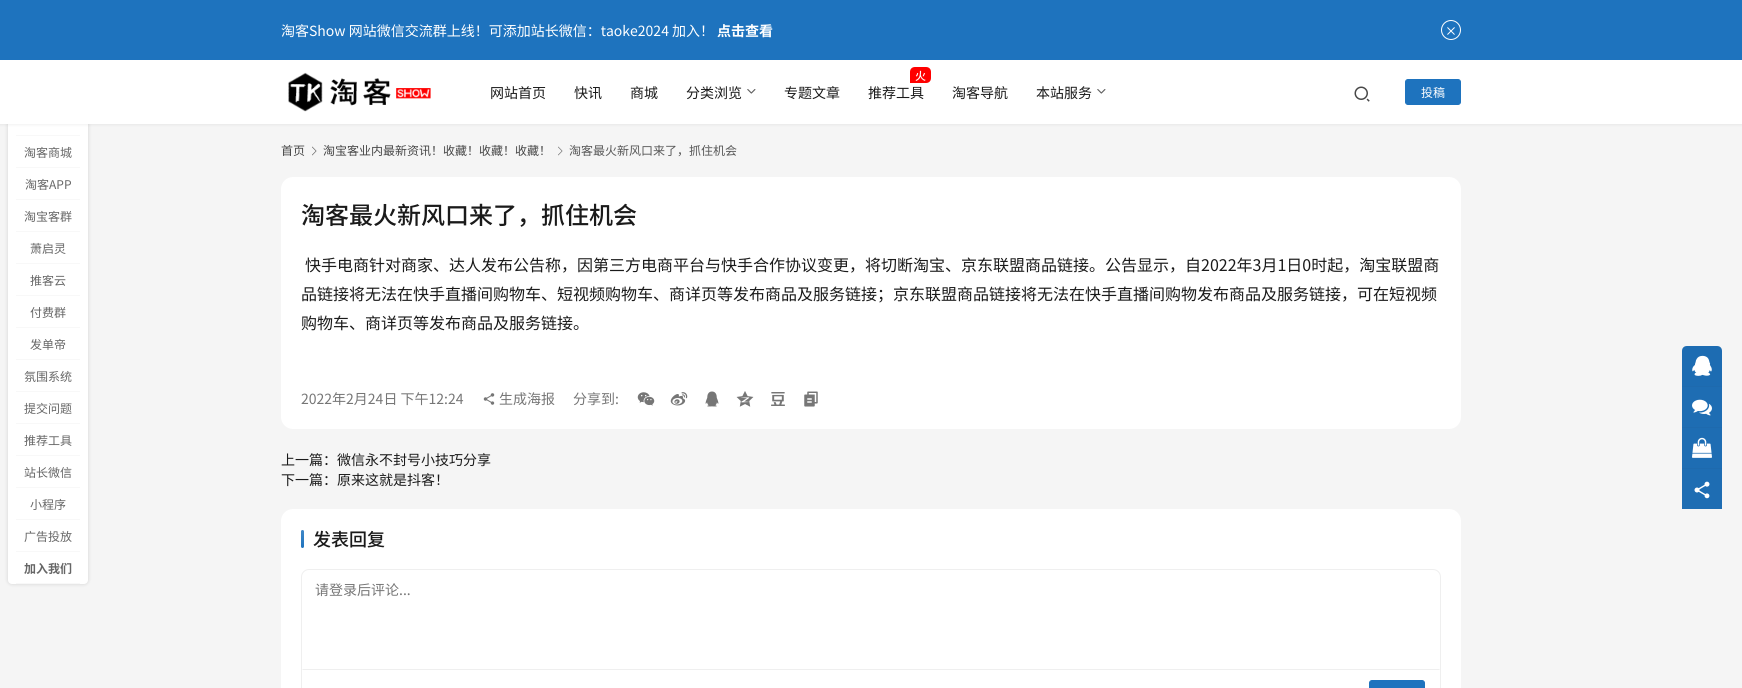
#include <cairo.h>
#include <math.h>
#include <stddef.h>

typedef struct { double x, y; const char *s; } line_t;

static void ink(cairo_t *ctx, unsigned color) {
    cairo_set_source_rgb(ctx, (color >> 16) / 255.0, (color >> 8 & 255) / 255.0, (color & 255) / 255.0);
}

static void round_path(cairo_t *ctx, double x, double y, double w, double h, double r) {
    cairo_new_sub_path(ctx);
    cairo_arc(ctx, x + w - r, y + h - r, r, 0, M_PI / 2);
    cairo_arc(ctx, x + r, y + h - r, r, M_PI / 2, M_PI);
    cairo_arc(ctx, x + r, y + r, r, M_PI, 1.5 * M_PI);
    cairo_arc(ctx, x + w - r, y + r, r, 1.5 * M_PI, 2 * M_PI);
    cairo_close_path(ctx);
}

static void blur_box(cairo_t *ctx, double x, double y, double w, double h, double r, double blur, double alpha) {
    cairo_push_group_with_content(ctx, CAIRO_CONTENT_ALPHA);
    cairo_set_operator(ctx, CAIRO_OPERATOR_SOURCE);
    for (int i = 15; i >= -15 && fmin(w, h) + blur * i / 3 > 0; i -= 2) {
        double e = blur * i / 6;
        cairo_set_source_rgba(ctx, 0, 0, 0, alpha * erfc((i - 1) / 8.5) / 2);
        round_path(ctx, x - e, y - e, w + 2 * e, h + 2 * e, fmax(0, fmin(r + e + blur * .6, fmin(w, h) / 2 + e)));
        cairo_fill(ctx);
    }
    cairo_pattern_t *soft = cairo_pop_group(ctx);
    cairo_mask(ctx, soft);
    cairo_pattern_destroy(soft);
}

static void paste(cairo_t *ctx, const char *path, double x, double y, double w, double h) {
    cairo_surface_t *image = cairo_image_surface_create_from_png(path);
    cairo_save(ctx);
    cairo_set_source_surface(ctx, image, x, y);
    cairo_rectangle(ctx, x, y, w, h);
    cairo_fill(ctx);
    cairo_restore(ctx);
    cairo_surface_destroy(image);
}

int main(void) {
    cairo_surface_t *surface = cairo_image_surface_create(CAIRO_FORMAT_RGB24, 1742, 688);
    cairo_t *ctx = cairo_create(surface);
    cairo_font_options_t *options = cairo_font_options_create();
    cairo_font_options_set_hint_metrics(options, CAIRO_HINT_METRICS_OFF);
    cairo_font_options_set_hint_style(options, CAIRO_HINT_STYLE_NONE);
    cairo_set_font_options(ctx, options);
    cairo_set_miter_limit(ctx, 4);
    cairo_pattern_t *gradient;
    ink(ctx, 0xF5F5F5);
    cairo_paint(ctx);
    ink(ctx, 0x000000);
    blur_box(ctx, 8, 104, 80, 480, 4, 2, 0.15);
    ink(ctx, 0xFFFFFF);
    round_path(ctx, 8, 104, 80, 480, 4);
    cairo_fill(ctx);
    ink(ctx, 0x1A1A1A);
    blur_box(ctx, -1, 59, 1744, 66, 0, 1.5, 0.06);
    ink(ctx, 0x1E73BE);
    cairo_rectangle(ctx, 0, 0, 1742, 60);
    cairo_fill(ctx);
    cairo_select_font_face(ctx, "Noto Sans CJK SC", CAIRO_FONT_SLANT_NORMAL, CAIRO_FONT_WEIGHT_NORMAL);
    cairo_set_font_size(ctx, 14);
    ink(ctx, 0xFFFFFF);
    cairo_move_to(ctx, 281, 36);
    cairo_show_text(ctx, "淘客Show 网站微信交流群上线！可添加站长微信：taoke2024 加入！");
    cairo_select_font_face(ctx, "Noto Sans CJK SC", CAIRO_FONT_SLANT_NORMAL, CAIRO_FONT_WEIGHT_BOLD);
    cairo_move_to(ctx, 717, 36);
    cairo_show_text(ctx, "点击查看");
    cairo_new_path(ctx);
    cairo_arc(ctx, 1451, 30, 9.5, 0, 2 * M_PI);
    cairo_set_line_width(ctx, 1);
    cairo_stroke(ctx);
    paste(ctx, "media/1.png", 1447, 27, 8, 8);
    cairo_rectangle(ctx, 0, 60, 1742, 64);
    cairo_fill(ctx);
    paste(ctx, "media/2.png", 288, 72, 143, 40);
    cairo_select_font_face(ctx, "Noto Sans CJK SC", CAIRO_FONT_SLANT_NORMAL, CAIRO_FONT_WEIGHT_NORMAL);
    ink(ctx, 0x1A1A1A);
    {
        static const line_t items[] = {
            {490, 98, "网站首页"},
            {574, 98, "快讯"},
            {630, 98, "商城"},
            {686, 98, "分类浏览"},
        };
        for (size_t i = 0; i < sizeof items / sizeof *items; i++) {
            cairo_move_to(ctx, items[i].x, items[i].y);
            cairo_show_text(ctx, items[i].s);
        }
    }
    paste(ctx, "media/3.png", 747, 89, 9, 5);
    cairo_move_to(ctx, 784, 98);
    cairo_show_text(ctx, "专题文章");
    ink(ctx, 0xFF0000);
    cairo_new_path(ctx);
    cairo_move_to(ctx, 915, 67);
    cairo_line_to(ctx, 926, 67);
    cairo_curve_to(ctx, 929, 67, 931, 69, 931, 72);
    cairo_line_to(ctx, 931, 78);
    cairo_curve_to(ctx, 931, 81, 929, 83, 926, 83);
    cairo_line_to(ctx, 910, 83);
    cairo_line_to(ctx, 910, 72);
    cairo_curve_to(ctx, 910, 69, 912, 67, 915, 67);
    cairo_close_path(ctx);
    cairo_fill(ctx);
    cairo_select_font_face(ctx, "Noto Sans CJK SC Medium", CAIRO_FONT_SLANT_NORMAL, CAIRO_FONT_WEIGHT_NORMAL);
    cairo_set_font_size(ctx, 11);
    ink(ctx, 0xFFFFFF);
    cairo_move_to(ctx, 915, 80);
    cairo_show_text(ctx, "火");
    cairo_select_font_face(ctx, "Noto Sans CJK SC", CAIRO_FONT_SLANT_NORMAL, CAIRO_FONT_WEIGHT_NORMAL);
    cairo_set_font_size(ctx, 14);
    ink(ctx, 0x1A1A1A);
    {
        static const line_t items[] = {
            {868, 98, "推荐工具"},
            {952, 98, "淘客导航"},
            {1036, 98, "本站服务"},
        };
        for (size_t i = 0; i < sizeof items / sizeof *items; i++) {
            cairo_move_to(ctx, items[i].x, items[i].y);
            cairo_show_text(ctx, items[i].s);
        }
    }
    paste(ctx, "media/3.png", 1097, 89, 9, 5);
    paste(ctx, "media/4.png", 1354, 86, 16, 16);
    ink(ctx, 0x1E73BE);
    round_path(ctx, 1405.5, 79.5, 55, 25, 2.5);
    cairo_fill_preserve(ctx);
    cairo_stroke(ctx);
    cairo_set_font_size(ctx, 12);
    ink(ctx, 0xFFFFFF);
    cairo_move_to(ctx, 1421, 97);
    cairo_show_text(ctx, "投稿");
    ink(ctx, 0xF8F8F8);
    cairo_rectangle(ctx, 16, 135, 64, 1);
    cairo_fill(ctx);
    cairo_rectangle(ctx, 16, 167, 64, 1);
    cairo_fill(ctx);
    ink(ctx, 0x666666);
    cairo_move_to(ctx, 24, 157);
    cairo_show_text(ctx, "淘客商城");
    ink(ctx, 0xF8F8F8);
    cairo_rectangle(ctx, 16, 199, 64, 1);
    cairo_fill(ctx);
    ink(ctx, 0x666666);
    cairo_move_to(ctx, 25, 189);
    cairo_show_text(ctx, "淘客APP");
    ink(ctx, 0xF8F8F8);
    cairo_rectangle(ctx, 16, 231, 64, 1);
    cairo_fill(ctx);
    ink(ctx, 0x666666);
    cairo_move_to(ctx, 24, 221);
    cairo_show_text(ctx, "淘宝客群");
    ink(ctx, 0xF8F8F8);
    cairo_rectangle(ctx, 16, 263, 64, 1);
    cairo_fill(ctx);
    ink(ctx, 0x666666);
    cairo_move_to(ctx, 30, 253);
    cairo_show_text(ctx, "萧启灵");
    ink(ctx, 0xF8F8F8);
    cairo_rectangle(ctx, 16, 295, 64, 1);
    cairo_fill(ctx);
    ink(ctx, 0x666666);
    cairo_move_to(ctx, 30, 285);
    cairo_show_text(ctx, "推客云");
    ink(ctx, 0xF8F8F8);
    cairo_rectangle(ctx, 16, 327, 64, 1);
    cairo_fill(ctx);
    ink(ctx, 0x666666);
    cairo_move_to(ctx, 30, 317);
    cairo_show_text(ctx, "付费群");
    ink(ctx, 0xF8F8F8);
    cairo_rectangle(ctx, 16, 359, 64, 1);
    cairo_fill(ctx);
    ink(ctx, 0x666666);
    cairo_move_to(ctx, 30, 349);
    cairo_show_text(ctx, "发单帝");
    ink(ctx, 0xF8F8F8);
    cairo_rectangle(ctx, 16, 391, 64, 1);
    cairo_fill(ctx);
    ink(ctx, 0x666666);
    cairo_move_to(ctx, 24, 381);
    cairo_show_text(ctx, "氛围系统");
    ink(ctx, 0xF8F8F8);
    cairo_rectangle(ctx, 16, 423, 64, 1);
    cairo_fill(ctx);
    ink(ctx, 0x666666);
    cairo_move_to(ctx, 24, 413);
    cairo_show_text(ctx, "提交问题");
    ink(ctx, 0xF8F8F8);
    cairo_rectangle(ctx, 16, 455, 64, 1);
    cairo_fill(ctx);
    ink(ctx, 0x666666);
    cairo_move_to(ctx, 24, 445);
    cairo_show_text(ctx, "推荐工具");
    ink(ctx, 0xF8F8F8);
    cairo_rectangle(ctx, 16, 487, 64, 1);
    cairo_fill(ctx);
    ink(ctx, 0x666666);
    cairo_move_to(ctx, 24, 477);
    cairo_show_text(ctx, "站长微信");
    ink(ctx, 0xF8F8F8);
    cairo_rectangle(ctx, 16, 519, 64, 1);
    cairo_fill(ctx);
    ink(ctx, 0x666666);
    cairo_move_to(ctx, 30, 509);
    cairo_show_text(ctx, "小程序");
    ink(ctx, 0xF8F8F8);
    cairo_rectangle(ctx, 16, 551, 64, 1);
    cairo_fill(ctx);
    ink(ctx, 0x666666);
    cairo_move_to(ctx, 24, 541);
    cairo_show_text(ctx, "广告投放");
    ink(ctx, 0xF8F8F8);
    cairo_rectangle(ctx, 16, 583, 64, 1);
    cairo_fill(ctx);
    cairo_select_font_face(ctx, "Noto Sans CJK SC", CAIRO_FONT_SLANT_NORMAL, CAIRO_FONT_WEIGHT_BOLD);
    ink(ctx, 0x666666);
    cairo_move_to(ctx, 24, 573);
    cairo_show_text(ctx, "加入我们");
    cairo_select_font_face(ctx, "Noto Sans CJK SC", CAIRO_FONT_SLANT_NORMAL, CAIRO_FONT_WEIGHT_NORMAL);
    ink(ctx, 0x464646);
    cairo_move_to(ctx, 281, 155);
    cairo_show_text(ctx, "首页");
    paste(ctx, "media/5.png", 312, 146, 5, 10);
    cairo_move_to(ctx, 323, 155);
    cairo_show_text(ctx, "淘宝客业内最新资讯！收藏！收藏！收藏！");
    paste(ctx, "media/6.png", 558, 146, 5, 10);
    ink(ctx, 0x575757);
    cairo_move_to(ctx, 569, 155);
    cairo_show_text(ctx, "淘客最火新风口来了，抓住机会");
    ink(ctx, 0xFFFFFF);
    round_path(ctx, 281, 177, 1180, 252, 12);
    cairo_fill(ctx);
    cairo_select_font_face(ctx, "Noto Sans CJK SC Medium", CAIRO_FONT_SLANT_NORMAL, CAIRO_FONT_WEIGHT_NORMAL);
    cairo_set_font_size(ctx, 24);
    ink(ctx, 0x1A1A1A);
    cairo_move_to(ctx, 301, 224);
    cairo_show_text(ctx, "淘客最火新风口来了，抓住机会");
    cairo_select_font_face(ctx, "Noto Sans CJK SC", CAIRO_FONT_SLANT_NORMAL, CAIRO_FONT_WEIGHT_NORMAL);
    cairo_set_font_size(ctx, 16);
    {
        static const line_t items[] = {
            {305, 271, "快手电商针对商家、达人发布公告称，因第三方电商平台与快手合作协议变更，将切断淘宝、京东联盟商品链接。公告显示，自2022年3月1日0时起，淘宝联盟商"},
            {301, 300, "品链接将无法在快手直播间购物车、短视频购物车、商详页等发布商品及服务链接；京东联盟商品链接将无法在快手直播间购物发布商品及服务链接，可在短视频"},
            {301, 329, "购物车、商详页等发布商品及服务链接。"},
        };
        for (size_t i = 0; i < sizeof items / sizeof *items; i++) {
            cairo_move_to(ctx, items[i].x, items[i].y);
            cairo_show_text(ctx, items[i].s);
        }
    }
    cairo_set_font_size(ctx, 14);
    ink(ctx, 0x767676);
    cairo_move_to(ctx, 301, 404);
    cairo_show_text(ctx, "2022年2月24日 下午12:24");
    paste(ctx, "media/7.png", 483, 393, 12, 12);
    cairo_move_to(ctx, 499, 404);
    cairo_show_text(ctx, "生成海报");
    cairo_move_to(ctx, 573, 404);
    cairo_show_text(ctx, "分享到:");
    paste(ctx, "media/8.png", 637, 392, 18, 14);
    paste(ctx, "media/9.png", 670, 392, 18, 14);
    paste(ctx, "media/10.png", 705, 391, 14, 16);
    paste(ctx, "media/11.png", 736, 391, 18, 16);
    paste(ctx, "media/12.png", 771, 392, 14, 14);
    paste(ctx, "media/13.png", 804, 391, 14, 16);
    ink(ctx, 0x1A1A1A);
    cairo_move_to(ctx, 281, 465);
    cairo_show_text(ctx, "上一篇：微信永不封号小技巧分享");
    cairo_move_to(ctx, 281, 485);
    cairo_show_text(ctx, "下一篇：原来这就是抖客！");
    ink(ctx, 0xFFFFFF);
    round_path(ctx, 281, 509, 1180, 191, 12);
    cairo_fill(ctx);
    ink(ctx, 0x1E73BE);
    round_path(ctx, 301, 530, 3, 18, 1.5);
    cairo_fill(ctx);
    gradient = cairo_pattern_create_linear(303, 530, 303, 548);
    cairo_pattern_add_color_stop_rgba(gradient, 0, 1, 1, 1, 0.15);
    cairo_pattern_add_color_stop_rgba(gradient, 1, 1, 1, 1, 0);
    cairo_set_source(ctx, gradient);
    cairo_pattern_destroy(gradient);
    round_path(ctx, 301, 530, 3, 18, 1.5);
    cairo_fill(ctx);
    cairo_select_font_face(ctx, "Noto Sans CJK SC Medium", CAIRO_FONT_SLANT_NORMAL, CAIRO_FONT_WEIGHT_NORMAL);
    cairo_set_font_size(ctx, 18);
    ink(ctx, 0x1A1A1A);
    cairo_move_to(ctx, 313, 546);
    cairo_show_text(ctx, "发表回复");
    round_path(ctx, 301.5, 569.5, 1139, 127, 7.5);
    ink(ctx, 0xEFEFEF);
    cairo_stroke(ctx);
    cairo_new_path(ctx);
    cairo_move_to(ctx, 1440, 670);
    cairo_line_to(ctx, 302, 670);
    cairo_line_to(ctx, 303, 669);
    cairo_line_to(ctx, 1439, 669);
    cairo_close_path(ctx);
    cairo_fill(ctx);
    cairo_select_font_face(ctx, "Noto Sans CJK SC", CAIRO_FONT_SLANT_NORMAL, CAIRO_FONT_WEIGHT_NORMAL);
    cairo_set_font_size(ctx, 14);
    ink(ctx, 0x767676);
    cairo_move_to(ctx, 315, 595);
    cairo_show_text(ctx, "请登录后评论...");
    ink(ctx, 0x1E73BE);
    round_path(ctx, 1369.5, 680.5, 55, 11, 2.5);
    cairo_fill_preserve(ctx);
    cairo_stroke(ctx);
    cairo_new_path(ctx);
    cairo_move_to(ctx, 1687, 346);
    cairo_line_to(ctx, 1717, 346);
    cairo_curve_to(ctx, 1720, 346, 1722, 348, 1722, 351);
    cairo_line_to(ctx, 1722, 386);
    cairo_line_to(ctx, 1682, 386);
    cairo_line_to(ctx, 1682, 351);
    cairo_curve_to(ctx, 1682, 348, 1684, 346, 1687, 346);
    cairo_close_path(ctx);
    cairo_fill(ctx);
    cairo_set_source_rgba(ctx, 0.102, 0.102, 0.102, 0.07);
    cairo_new_path(ctx);
    cairo_move_to(ctx, 1687, 346);
    cairo_line_to(ctx, 1717, 346);
    cairo_curve_to(ctx, 1720, 346, 1722, 348, 1722, 351);
    cairo_line_to(ctx, 1722, 386);
    cairo_line_to(ctx, 1682, 386);
    cairo_line_to(ctx, 1682, 351);
    cairo_curve_to(ctx, 1682, 348, 1684, 346, 1687, 346);
    cairo_close_path(ctx);
    cairo_fill(ctx);
    paste(ctx, "media/14.png", 1692, 355, 20, 21);
    ink(ctx, 0x1E6AAE);
    cairo_rectangle(ctx, 1682, 386, 40, 1);
    cairo_fill(ctx);
    ink(ctx, 0x1E6DB3);
    cairo_rectangle(ctx, 1682, 387, 40, 40);
    cairo_fill(ctx);
    paste(ctx, "media/15.png", 1692, 399, 20, 17);
    ink(ctx, 0x1E6AAE);
    cairo_rectangle(ctx, 1682, 427, 40, 1);
    cairo_fill(ctx);
    ink(ctx, 0x1E6DB3);
    cairo_rectangle(ctx, 1682, 428, 40, 40);
    cairo_fill(ctx);
    paste(ctx, "media/16.png", 1692, 437, 20, 21);
    ink(ctx, 0x1E6AAE);
    cairo_rectangle(ctx, 1682, 468, 40, 1);
    cairo_fill(ctx);
    ink(ctx, 0x1E6DB3);
    cairo_rectangle(ctx, 1682, 469, 40, 40);
    cairo_fill(ctx);
    paste(ctx, "media/17.png", 1694, 481, 16, 18);
    cairo_surface_write_to_png(surface, "image.png");
    cairo_font_options_destroy(options);
    cairo_destroy(ctx);
    cairo_surface_destroy(surface);
    return 0;
}
